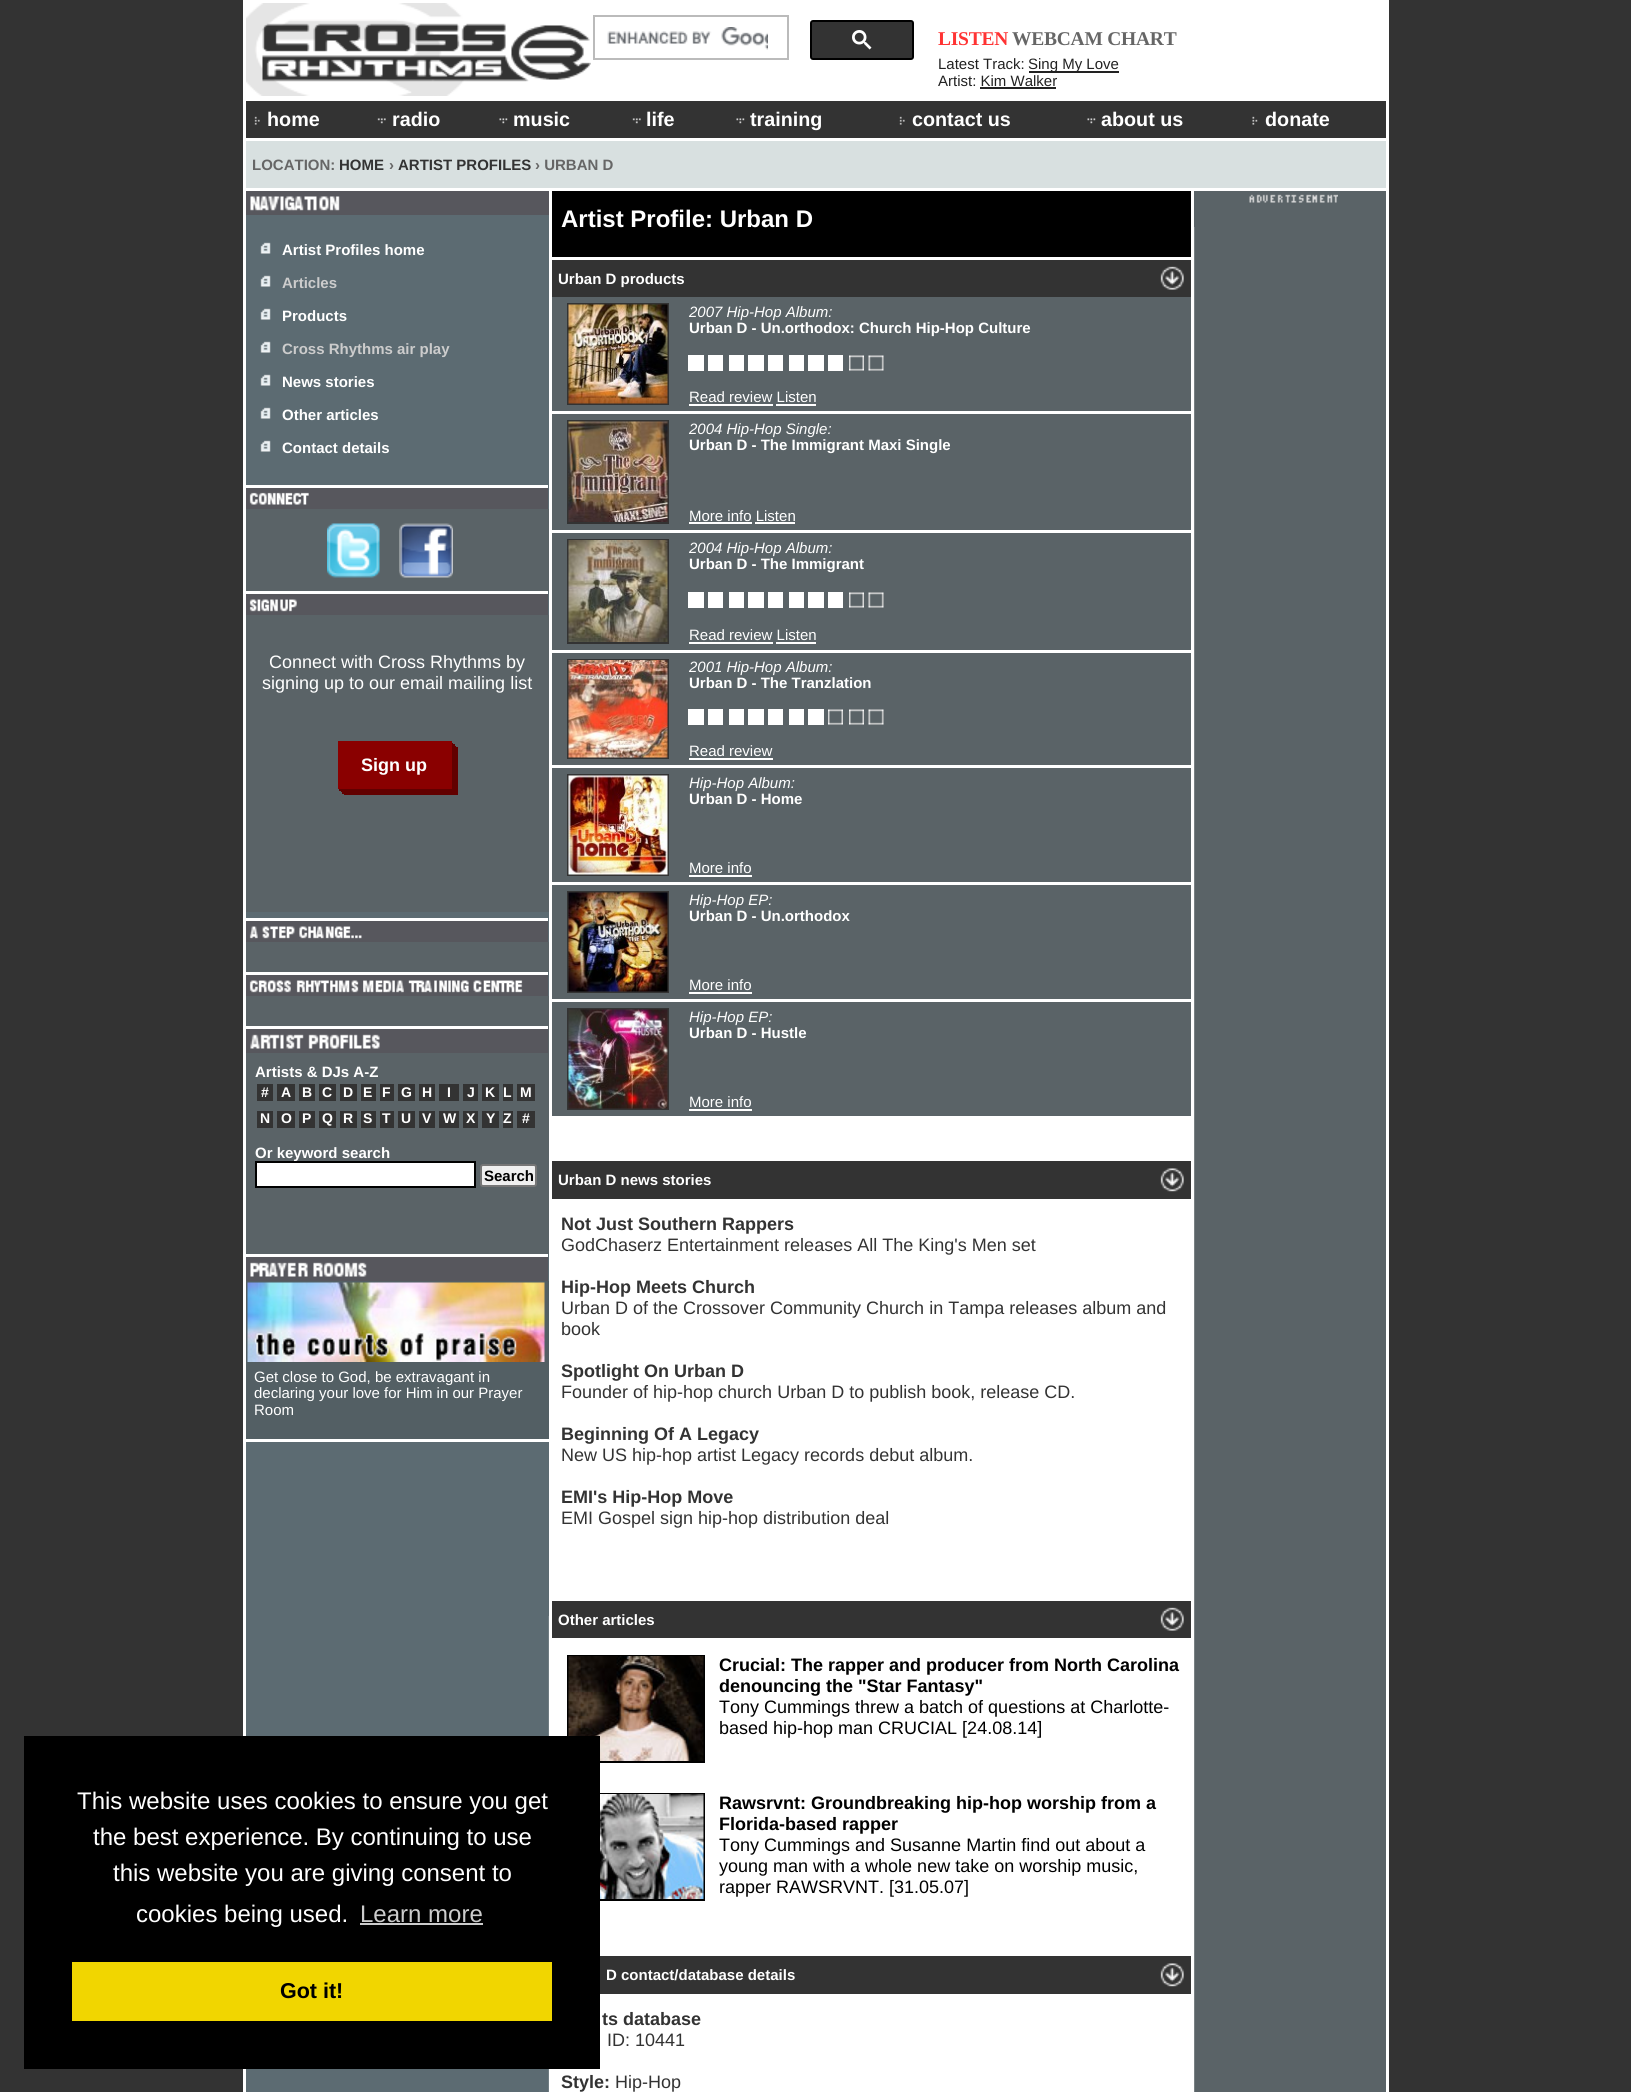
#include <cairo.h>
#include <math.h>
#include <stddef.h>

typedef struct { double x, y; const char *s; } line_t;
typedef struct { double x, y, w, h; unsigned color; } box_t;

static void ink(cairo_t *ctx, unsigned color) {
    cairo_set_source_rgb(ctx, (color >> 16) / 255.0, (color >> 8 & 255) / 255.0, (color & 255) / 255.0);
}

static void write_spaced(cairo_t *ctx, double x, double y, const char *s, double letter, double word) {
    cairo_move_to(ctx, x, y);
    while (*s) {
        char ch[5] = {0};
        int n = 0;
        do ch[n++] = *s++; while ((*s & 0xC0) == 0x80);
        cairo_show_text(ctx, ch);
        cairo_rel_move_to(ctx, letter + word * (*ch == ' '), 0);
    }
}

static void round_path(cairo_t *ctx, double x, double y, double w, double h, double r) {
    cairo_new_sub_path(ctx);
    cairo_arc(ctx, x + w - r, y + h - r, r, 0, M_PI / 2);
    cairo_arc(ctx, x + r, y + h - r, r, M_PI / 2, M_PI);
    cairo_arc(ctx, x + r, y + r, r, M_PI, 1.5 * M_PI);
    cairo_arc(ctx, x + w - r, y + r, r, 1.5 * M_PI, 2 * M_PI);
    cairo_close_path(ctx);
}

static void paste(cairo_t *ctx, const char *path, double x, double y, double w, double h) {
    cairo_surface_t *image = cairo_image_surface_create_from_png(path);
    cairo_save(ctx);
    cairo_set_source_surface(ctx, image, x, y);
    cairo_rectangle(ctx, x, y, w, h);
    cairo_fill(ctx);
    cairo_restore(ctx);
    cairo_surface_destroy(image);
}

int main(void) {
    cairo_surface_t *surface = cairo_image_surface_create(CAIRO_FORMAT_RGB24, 1631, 2092);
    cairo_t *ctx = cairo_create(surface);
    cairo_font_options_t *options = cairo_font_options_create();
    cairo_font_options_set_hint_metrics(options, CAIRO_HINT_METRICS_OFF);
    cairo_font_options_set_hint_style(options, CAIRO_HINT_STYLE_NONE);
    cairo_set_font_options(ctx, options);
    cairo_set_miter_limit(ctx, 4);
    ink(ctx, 0x333333);
    cairo_paint(ctx);
    cairo_rectangle(ctx, 244.5, 1.5, 1143, 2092);
    ink(ctx, 0xFFFFFF);
    cairo_set_line_width(ctx, 3);
    cairo_stroke(ctx);
    paste(ctx, "media/1.png", 246, 227, 1140, 1865);
    cairo_rectangle(ctx, 246, 3, 1140, 98);
    cairo_fill(ctx);
    paste(ctx, "media/2.png", 246, 3, 345, 93);
    cairo_rectangle(ctx, 594, 16, 194, 43);
    ink(ctx, 0xBBBBBB);
    cairo_set_line_width(ctx, 2);
    cairo_stroke(ctx);
    paste(ctx, "media/3.png", 607, 27, 161, 23);
    ink(ctx, 0x333333);
    round_path(ctx, 811, 21, 102, 38, 2);
    cairo_fill_preserve(ctx);
    ink(ctx, 0x000000);
    cairo_stroke(ctx);
    paste(ctx, "media/4.png", 852, 30, 20, 20);
    cairo_select_font_face(ctx, "Liberation Serif", CAIRO_FONT_SLANT_NORMAL, CAIRO_FONT_WEIGHT_BOLD);
    cairo_set_font_size(ctx, 19.5);
    ink(ctx, 0xFF3333);
    write_spaced(ctx, 938, 45, "LISTEN", -0.25, 0);
    ink(ctx, 0x666666);
    write_spaced(ctx, 1012, 45, "WEBCAM CHART", -0.25, 0);
    cairo_select_font_face(ctx, "Liberation Sans", CAIRO_FONT_SLANT_NORMAL, CAIRO_FONT_WEIGHT_NORMAL);
    cairo_set_font_size(ctx, 15);
    ink(ctx, 0x222222);
    cairo_move_to(ctx, 938, 69);
    cairo_show_text(ctx, "Latest Track:");
    cairo_rectangle(ctx, 1029, 71, 90, 2);
    cairo_fill(ctx);
    cairo_move_to(ctx, 1028, 69);
    cairo_show_text(ctx, "Sing My Love");
    cairo_move_to(ctx, 938, 86);
    cairo_show_text(ctx, "Artist: Kim Walker");
    cairo_rectangle(ctx, 980, 87, 76, 2);
    cairo_fill(ctx);
    paste(ctx, "media/5.png", 254, 116, 6, 9);
    cairo_select_font_face(ctx, "Liberation Sans", CAIRO_FONT_SLANT_NORMAL, CAIRO_FONT_WEIGHT_BOLD);
    cairo_set_font_size(ctx, 19.75);
    ink(ctx, 0xFFFFFF);
    cairo_move_to(ctx, 267, 126);
    cairo_show_text(ctx, "home");
    paste(ctx, "media/6.png", 377, 118, 9, 6);
    cairo_move_to(ctx, 392, 126);
    cairo_show_text(ctx, "radio");
    paste(ctx, "media/7.png", 499, 118, 9, 6);
    cairo_move_to(ctx, 513, 126);
    cairo_show_text(ctx, "music");
    paste(ctx, "media/6.png", 632, 118, 9, 6);
    cairo_move_to(ctx, 646, 126);
    cairo_show_text(ctx, "life");
    paste(ctx, "media/7.png", 736, 118, 9, 6);
    cairo_move_to(ctx, 750, 126);
    cairo_show_text(ctx, "training");
    paste(ctx, "media/5.png", 899, 116, 6, 9);
    cairo_move_to(ctx, 912, 126);
    cairo_show_text(ctx, "contact us");
    paste(ctx, "media/7.png", 1087, 118, 9, 6);
    cairo_move_to(ctx, 1101, 126);
    cairo_show_text(ctx, "about us");
    paste(ctx, "media/8.png", 1252, 116, 6, 9);
    cairo_move_to(ctx, 1265, 126);
    cairo_show_text(ctx, "donate");
    ink(ctx, 0xD8E0E0);
    cairo_rectangle(ctx, 246, 141, 1140, 47);
    cairo_fill(ctx);
    ink(ctx, 0xFFFFFF);
    cairo_rectangle(ctx, 246, 138, 1140, 3);
    cairo_fill(ctx);
    cairo_set_font_size(ctx, 15);
    ink(ctx, 0x666666);
    cairo_move_to(ctx, 252, 170);
    cairo_show_text(ctx, "LOCATION:");
    ink(ctx, 0x333333);
    cairo_move_to(ctx, 339, 170);
    cairo_show_text(ctx, "HOME");
    ink(ctx, 0x666666);
    cairo_move_to(ctx, 389, 170);
    cairo_show_text(ctx, "›");
    ink(ctx, 0x333333);
    cairo_move_to(ctx, 398, 170);
    cairo_show_text(ctx, "ARTIST PROFILES");
    ink(ctx, 0x666666);
    cairo_move_to(ctx, 535, 170);
    cairo_show_text(ctx, "› URBAN D");
    {
        static const box_t items[] = {
            {246, 215, 303, 1401, 0x5C6B72},
            {549, 188, 645, 1904, 0xFFFFFF},
            {246, 188, 306, 3, 0xFFFFFF},
            {246, 191, 303, 24, 0x57575D},
        };
        for (size_t i = 0; i < sizeof items / sizeof *items; i++) {
            ink(ctx, items[i].color);
            cairo_rectangle(ctx, items[i].x, items[i].y, items[i].w, items[i].h);
            cairo_fill(ctx);
        }
    }
    paste(ctx, "media/9.png", 250, 196, 90, 15);
    paste(ctx, "media/10.png", 260, 242, 11, 12);
    ink(ctx, 0xFFFFFF);
    cairo_move_to(ctx, 282, 255);
    cairo_show_text(ctx, "Artist Profiles home");
    paste(ctx, "media/10.png", 260, 275, 11, 12);
    ink(ctx, 0xCCCCCC);
    cairo_move_to(ctx, 282, 288);
    cairo_show_text(ctx, "Articles");
    paste(ctx, "media/10.png", 260, 308, 11, 12);
    ink(ctx, 0xFFFFFF);
    cairo_move_to(ctx, 282, 321);
    cairo_show_text(ctx, "Products");
    paste(ctx, "media/10.png", 260, 341, 11, 12);
    ink(ctx, 0xCCCCCC);
    cairo_move_to(ctx, 282, 354);
    cairo_show_text(ctx, "Cross Rhythms air play");
    paste(ctx, "media/10.png", 260, 374, 11, 12);
    ink(ctx, 0xFFFFFF);
    cairo_move_to(ctx, 282, 387);
    cairo_show_text(ctx, "News stories");
    paste(ctx, "media/10.png", 260, 407, 11, 12);
    cairo_move_to(ctx, 282, 420);
    cairo_show_text(ctx, "Other articles");
    paste(ctx, "media/10.png", 260, 440, 11, 12);
    cairo_move_to(ctx, 282, 453);
    cairo_show_text(ctx, "Contact details");
    ink(ctx, 0x57575D);
    cairo_rectangle(ctx, 246, 488, 302, 21);
    cairo_fill(ctx);
    ink(ctx, 0xFFFFFF);
    cairo_rectangle(ctx, 246, 485, 302, 3);
    cairo_fill(ctx);
    paste(ctx, "media/11.png", 249, 492, 60, 13);
    ink(ctx, 0x5A6367);
    cairo_rectangle(ctx, 246, 509, 303, 82);
    cairo_fill(ctx);
    paste(ctx, "media/12.png", 327, 523, 53, 55);
    paste(ctx, "media/13.png", 399, 523, 54, 55);
    ink(ctx, 0x57575D);
    cairo_rectangle(ctx, 246, 594, 302, 21);
    cairo_fill(ctx);
    ink(ctx, 0xFFFFFF);
    cairo_rectangle(ctx, 246, 591, 302, 3);
    cairo_fill(ctx);
    paste(ctx, "media/14.png", 249, 599, 48, 13);
    ink(ctx, 0x5A6367);
    cairo_rectangle(ctx, 246, 615, 303, 297);
    cairo_fill(ctx);
    cairo_select_font_face(ctx, "Liberation Sans", CAIRO_FONT_SLANT_NORMAL, CAIRO_FONT_WEIGHT_NORMAL);
    cairo_set_font_size(ctx, 18);
    ink(ctx, 0xFFFFFF);
    cairo_move_to(ctx, 269, 668);
    cairo_show_text(ctx, "Connect with Cross Rhythms by");
    cairo_move_to(ctx, 262, 689);
    cairo_show_text(ctx, "signing up to our email mailing list");
    ink(ctx, 0x620000);
    cairo_new_path(ctx);
    cairo_move_to(ctx, 344, 789);
    cairo_line_to(ctx, 344, 795);
    cairo_line_to(ctx, 458, 795);
    cairo_line_to(ctx, 458, 747);
    cairo_line_to(ctx, 452, 747);
    cairo_line_to(ctx, 452, 789);
    cairo_close_path(ctx);
    cairo_fill(ctx);
    cairo_new_path(ctx);
    cairo_move_to(ctx, 342, 789);
    cairo_line_to(ctx, 342, 794);
    cairo_line_to(ctx, 456, 794);
    cairo_line_to(ctx, 456, 746);
    cairo_line_to(ctx, 452, 746);
    cairo_line_to(ctx, 452, 789);
    cairo_close_path(ctx);
    cairo_fill(ctx);
    cairo_new_path(ctx);
    cairo_move_to(ctx, 341, 789);
    cairo_line_to(ctx, 341, 792);
    cairo_line_to(ctx, 455, 792);
    cairo_line_to(ctx, 455, 744);
    cairo_line_to(ctx, 452, 744);
    cairo_line_to(ctx, 452, 789);
    cairo_close_path(ctx);
    cairo_fill(ctx);
    cairo_new_path(ctx);
    cairo_move_to(ctx, 339, 789);
    cairo_line_to(ctx, 339, 791);
    cairo_line_to(ctx, 453, 791);
    cairo_line_to(ctx, 453, 743);
    cairo_line_to(ctx, 452, 743);
    cairo_line_to(ctx, 452, 789);
    cairo_close_path(ctx);
    cairo_fill(ctx);
    ink(ctx, 0x8A0000);
    cairo_rectangle(ctx, 338, 741, 114, 48);
    cairo_fill(ctx);
    cairo_select_font_face(ctx, "Liberation Sans", CAIRO_FONT_SLANT_NORMAL, CAIRO_FONT_WEIGHT_BOLD);
    ink(ctx, 0xFFFFFF);
    cairo_move_to(ctx, 361, 771);
    cairo_show_text(ctx, "Sign up");
    ink(ctx, 0x57575D);
    cairo_rectangle(ctx, 246, 921, 302, 21);
    cairo_fill(ctx);
    ink(ctx, 0xFFFFFF);
    cairo_rectangle(ctx, 246, 918, 302, 3);
    cairo_fill(ctx);
    paste(ctx, "media/15.png", 249, 926, 113, 13);
    {
        static const box_t items[] = {
            {246, 942, 303, 30, 0x5A6367},
            {246, 975, 302, 21, 0x57575D},
            {246, 972, 302, 3, 0xFFFFFF},
        };
        for (size_t i = 0; i < sizeof items / sizeof *items; i++) {
            ink(ctx, items[i].color);
            cairo_rectangle(ctx, items[i].x, items[i].y, items[i].w, items[i].h);
            cairo_fill(ctx);
        }
    }
    paste(ctx, "media/16.png", 249, 980, 274, 13);
    {
        static const box_t items[] = {
            {246, 996, 303, 258, 0x5A6367},
            {246, 1029, 302, 24, 0x57575D},
            {246, 1026, 302, 3, 0xFFFFFF},
        };
        for (size_t i = 0; i < sizeof items / sizeof *items; i++) {
            ink(ctx, items[i].color);
            cairo_rectangle(ctx, items[i].x, items[i].y, items[i].w, items[i].h);
            cairo_fill(ctx);
        }
    }
    paste(ctx, "media/17.png", 250, 1034, 130, 15);
    cairo_set_font_size(ctx, 15);
    cairo_move_to(ctx, 255, 1077);
    cairo_show_text(ctx, "Artists & DJs A-Z");
    ink(ctx, 0x333333);
    cairo_rectangle(ctx, 257, 1084, 16, 17);
    cairo_fill(ctx);
    cairo_set_font_size(ctx, 14);
    ink(ctx, 0xFFFFFF);
    cairo_move_to(ctx, 261, 1097);
    cairo_show_text(ctx, "#");
    ink(ctx, 0x333333);
    cairo_rectangle(ctx, 277, 1084, 18, 17);
    cairo_fill(ctx);
    ink(ctx, 0xFFFFFF);
    cairo_move_to(ctx, 281, 1097);
    cairo_show_text(ctx, "A");
    ink(ctx, 0x333333);
    cairo_rectangle(ctx, 299, 1084, 16, 17);
    cairo_fill(ctx);
    ink(ctx, 0xFFFFFF);
    cairo_move_to(ctx, 302, 1097);
    cairo_show_text(ctx, "B");
    ink(ctx, 0x333333);
    cairo_rectangle(ctx, 319, 1084, 17, 17);
    cairo_fill(ctx);
    ink(ctx, 0xFFFFFF);
    cairo_move_to(ctx, 322, 1097);
    cairo_show_text(ctx, "C");
    ink(ctx, 0x333333);
    cairo_rectangle(ctx, 340, 1084, 17, 17);
    cairo_fill(ctx);
    ink(ctx, 0xFFFFFF);
    cairo_move_to(ctx, 343, 1097);
    cairo_show_text(ctx, "D");
    ink(ctx, 0x333333);
    cairo_rectangle(ctx, 361, 1084, 15, 17);
    cairo_fill(ctx);
    ink(ctx, 0xFFFFFF);
    cairo_move_to(ctx, 363, 1097);
    cairo_show_text(ctx, "E");
    ink(ctx, 0x333333);
    cairo_rectangle(ctx, 380, 1084, 14, 17);
    cairo_fill(ctx);
    ink(ctx, 0xFFFFFF);
    cairo_move_to(ctx, 382, 1097);
    cairo_show_text(ctx, "F");
    ink(ctx, 0x333333);
    cairo_rectangle(ctx, 398, 1084, 17, 17);
    cairo_fill(ctx);
    ink(ctx, 0xFFFFFF);
    cairo_move_to(ctx, 401, 1097);
    cairo_show_text(ctx, "G");
    ink(ctx, 0x333333);
    cairo_rectangle(ctx, 419, 1084, 16, 17);
    cairo_fill(ctx);
    ink(ctx, 0xFFFFFF);
    cairo_move_to(ctx, 422, 1097);
    cairo_show_text(ctx, "H");
    ink(ctx, 0x333333);
    cairo_rectangle(ctx, 439, 1084, 20, 17);
    cairo_fill(ctx);
    ink(ctx, 0xFFFFFF);
    cairo_move_to(ctx, 447, 1097);
    cairo_show_text(ctx, "I");
    ink(ctx, 0x333333);
    cairo_rectangle(ctx, 463, 1084, 15, 17);
    cairo_fill(ctx);
    ink(ctx, 0xFFFFFF);
    cairo_move_to(ctx, 467, 1097);
    cairo_show_text(ctx, "J");
    ink(ctx, 0x333333);
    cairo_rectangle(ctx, 482, 1084, 17, 17);
    cairo_fill(ctx);
    ink(ctx, 0xFFFFFF);
    cairo_move_to(ctx, 485, 1097);
    cairo_show_text(ctx, "K");
    ink(ctx, 0x333333);
    cairo_rectangle(ctx, 503, 1084, 10, 17);
    cairo_fill(ctx);
    ink(ctx, 0xFFFFFF);
    cairo_move_to(ctx, 503, 1097);
    cairo_show_text(ctx, "L");
    ink(ctx, 0x333333);
    cairo_rectangle(ctx, 517, 1084, 18, 17);
    cairo_fill(ctx);
    ink(ctx, 0xFFFFFF);
    cairo_move_to(ctx, 520, 1097);
    cairo_show_text(ctx, "M");
    ink(ctx, 0x333333);
    cairo_rectangle(ctx, 257, 1111, 16, 17);
    cairo_fill(ctx);
    ink(ctx, 0xFFFFFF);
    cairo_move_to(ctx, 260, 1123);
    cairo_show_text(ctx, "N");
    ink(ctx, 0x333333);
    cairo_rectangle(ctx, 277, 1111, 18, 17);
    cairo_fill(ctx);
    ink(ctx, 0xFFFFFF);
    cairo_move_to(ctx, 281, 1123);
    cairo_show_text(ctx, "O");
    ink(ctx, 0x333333);
    cairo_rectangle(ctx, 299, 1111, 16, 17);
    cairo_fill(ctx);
    ink(ctx, 0xFFFFFF);
    cairo_move_to(ctx, 302, 1123);
    cairo_show_text(ctx, "P");
    ink(ctx, 0x333333);
    cairo_rectangle(ctx, 319, 1111, 17, 17);
    cairo_fill(ctx);
    ink(ctx, 0xFFFFFF);
    cairo_move_to(ctx, 322, 1123);
    cairo_show_text(ctx, "Q");
    ink(ctx, 0x333333);
    cairo_rectangle(ctx, 340, 1111, 17, 17);
    cairo_fill(ctx);
    ink(ctx, 0xFFFFFF);
    cairo_move_to(ctx, 343, 1123);
    cairo_show_text(ctx, "R");
    ink(ctx, 0x333333);
    cairo_rectangle(ctx, 361, 1111, 15, 17);
    cairo_fill(ctx);
    ink(ctx, 0xFFFFFF);
    cairo_move_to(ctx, 363, 1123);
    cairo_show_text(ctx, "S");
    ink(ctx, 0x333333);
    cairo_rectangle(ctx, 380, 1111, 14, 17);
    cairo_fill(ctx);
    ink(ctx, 0xFFFFFF);
    cairo_move_to(ctx, 382, 1123);
    cairo_show_text(ctx, "T");
    ink(ctx, 0x333333);
    cairo_rectangle(ctx, 398, 1111, 17, 17);
    cairo_fill(ctx);
    ink(ctx, 0xFFFFFF);
    cairo_move_to(ctx, 401, 1123);
    cairo_show_text(ctx, "U");
    ink(ctx, 0x333333);
    cairo_rectangle(ctx, 419, 1111, 16, 17);
    cairo_fill(ctx);
    ink(ctx, 0xFFFFFF);
    cairo_move_to(ctx, 422, 1123);
    cairo_show_text(ctx, "V");
    ink(ctx, 0x333333);
    cairo_rectangle(ctx, 439, 1111, 20, 17);
    cairo_fill(ctx);
    ink(ctx, 0xFFFFFF);
    cairo_move_to(ctx, 443, 1123);
    cairo_show_text(ctx, "W");
    ink(ctx, 0x333333);
    cairo_rectangle(ctx, 463, 1111, 15, 17);
    cairo_fill(ctx);
    ink(ctx, 0xFFFFFF);
    cairo_move_to(ctx, 466, 1123);
    cairo_show_text(ctx, "X");
    ink(ctx, 0x333333);
    cairo_rectangle(ctx, 482, 1111, 17, 17);
    cairo_fill(ctx);
    ink(ctx, 0xFFFFFF);
    cairo_move_to(ctx, 486, 1123);
    cairo_show_text(ctx, "Y");
    ink(ctx, 0x333333);
    cairo_rectangle(ctx, 503, 1111, 10, 17);
    cairo_fill(ctx);
    ink(ctx, 0xFFFFFF);
    cairo_move_to(ctx, 503, 1123);
    cairo_show_text(ctx, "Z");
    ink(ctx, 0x333333);
    cairo_rectangle(ctx, 517, 1111, 18, 17);
    cairo_fill(ctx);
    ink(ctx, 0xFFFFFF);
    cairo_move_to(ctx, 522, 1123);
    cairo_show_text(ctx, "#");
    cairo_set_font_size(ctx, 15);
    cairo_move_to(ctx, 255, 1158);
    cairo_show_text(ctx, "Or keyword search");
    cairo_rectangle(ctx, 256, 1162, 219, 25);
    cairo_fill_preserve(ctx);
    ink(ctx, 0x000000);
    cairo_stroke(ctx);
    ink(ctx, 0xEFEFEF);
    round_path(ctx, 481, 1165, 55, 21, 2);
    cairo_fill_preserve(ctx);
    ink(ctx, 0x767676);
    cairo_stroke(ctx);
    ink(ctx, 0x000000);
    cairo_move_to(ctx, 484, 1181);
    cairo_show_text(ctx, "Search");
    ink(ctx, 0x57575D);
    cairo_rectangle(ctx, 246, 1257, 302, 24);
    cairo_fill(ctx);
    ink(ctx, 0xFFFFFF);
    cairo_rectangle(ctx, 246, 1254, 302, 3);
    cairo_fill(ctx);
    paste(ctx, "media/18.png", 250, 1262, 117, 15);
    ink(ctx, 0x535F64);
    cairo_rectangle(ctx, 246, 1281, 303, 158);
    cairo_fill(ctx);
    paste(ctx, "media/19.png", 247, 1282, 298, 80);
    cairo_select_font_face(ctx, "Liberation Sans", CAIRO_FONT_SLANT_NORMAL, CAIRO_FONT_WEIGHT_NORMAL);
    ink(ctx, 0xFFFFFF);
    {
        static const line_t items[] = {
            {254, 1382, "Get close to God, be extravagant in"},
            {254, 1398, "declaring your love for Him in our Prayer"},
            {254, 1415, "Room"},
        };
        for (size_t i = 0; i < sizeof items / sizeof *items; i++) {
            cairo_move_to(ctx, items[i].x, items[i].y);
            cairo_show_text(ctx, items[i].s);
        }
    }
    cairo_rectangle(ctx, 246, 1439, 303, 3);
    cairo_fill(ctx);
    ink(ctx, 0x000000);
    cairo_rectangle(ctx, 552, 191, 639, 66);
    cairo_fill(ctx);
    cairo_select_font_face(ctx, "Liberation Sans", CAIRO_FONT_SLANT_NORMAL, CAIRO_FONT_WEIGHT_BOLD);
    cairo_set_font_size(ctx, 24);
    ink(ctx, 0xFFFFFF);
    cairo_move_to(ctx, 561, 227);
    cairo_show_text(ctx, "Artist Profile: Urban D");
    ink(ctx, 0x333333);
    cairo_rectangle(ctx, 552, 260, 639, 37);
    cairo_fill(ctx);
    cairo_set_font_size(ctx, 15);
    ink(ctx, 0xFFFFFF);
    cairo_move_to(ctx, 558, 284);
    cairo_show_text(ctx, "Urban D products");
    paste(ctx, "media/20.png", 1160, 266, 24, 24);
    ink(ctx, 0x5A6367);
    cairo_rectangle(ctx, 552, 297, 639, 114);
    cairo_fill(ctx);
    cairo_rectangle(ctx, 568, 304, 100, 100);
    ink(ctx, 0x333333);
    cairo_stroke(ctx);
    paste(ctx, "media/21.png", 568, 304, 100, 100);
    cairo_select_font_face(ctx, "Liberation Sans", CAIRO_FONT_SLANT_ITALIC, CAIRO_FONT_WEIGHT_NORMAL);
    ink(ctx, 0xFFFFFF);
    cairo_move_to(ctx, 689, 317);
    cairo_show_text(ctx, "2007 Hip-Hop Album:");
    cairo_select_font_face(ctx, "Liberation Sans", CAIRO_FONT_SLANT_NORMAL, CAIRO_FONT_WEIGHT_BOLD);
    cairo_move_to(ctx, 689, 333);
    cairo_show_text(ctx, "Urban D - Un.orthodox: Church Hip-Hop Culture");
    {
        static const box_t items[] = {
            {688, 355, 16, 16, 0xFFFFFF},
            {708, 355, 15, 16, 0xFFFFFF},
            {729, 355, 15, 16, 0xFFFFFF},
            {748, 355, 16, 16, 0xFFFFFF},
            {768, 355, 15, 16, 0xFFFFFF},
            {789, 355, 15, 16, 0xFFFFFF},
            {808, 355, 16, 16, 0xFFFFFF},
            {828, 355, 15, 16, 0xFFFFFF},
        };
        for (size_t i = 0; i < sizeof items / sizeof *items; i++) {
            ink(ctx, items[i].color);
            cairo_rectangle(ctx, items[i].x, items[i].y, items[i].w, items[i].h);
            cairo_fill(ctx);
        }
    }
    paste(ctx, "media/22.png", 849, 355, 15, 16);
    paste(ctx, "media/23.png", 868, 355, 16, 16);
    cairo_select_font_face(ctx, "Liberation Sans", CAIRO_FONT_SLANT_NORMAL, CAIRO_FONT_WEIGHT_NORMAL);
    cairo_move_to(ctx, 689, 402);
    cairo_show_text(ctx, "Read review Listen");
    {
        static const box_t items[] = {
            {689, 404, 84, 2, 0xFFFFFF},
            {776, 404, 40, 2, 0xFFFFFF},
            {552, 414, 639, 116, 0x5A6367},
        };
        for (size_t i = 0; i < sizeof items / sizeof *items; i++) {
            ink(ctx, items[i].color);
            cairo_rectangle(ctx, items[i].x, items[i].y, items[i].w, items[i].h);
            cairo_fill(ctx);
        }
    }
    cairo_rectangle(ctx, 568, 421, 100, 102);
    ink(ctx, 0x333333);
    cairo_stroke(ctx);
    paste(ctx, "media/24.png", 568, 421, 100, 101);
    cairo_select_font_face(ctx, "Liberation Sans", CAIRO_FONT_SLANT_ITALIC, CAIRO_FONT_WEIGHT_NORMAL);
    ink(ctx, 0xFFFFFF);
    cairo_move_to(ctx, 689, 434);
    cairo_show_text(ctx, "2004 Hip-Hop Single:");
    cairo_select_font_face(ctx, "Liberation Sans", CAIRO_FONT_SLANT_NORMAL, CAIRO_FONT_WEIGHT_BOLD);
    cairo_move_to(ctx, 689, 450);
    cairo_show_text(ctx, "Urban D - The Immigrant Maxi Single");
    cairo_select_font_face(ctx, "Liberation Sans", CAIRO_FONT_SLANT_NORMAL, CAIRO_FONT_WEIGHT_NORMAL);
    cairo_move_to(ctx, 689, 521);
    cairo_show_text(ctx, "More info Listen");
    {
        static const box_t items[] = {
            {689, 522, 63, 2, 0xFFFFFF},
            {755, 522, 40, 2, 0xFFFFFF},
            {552, 533, 639, 117, 0x5A6367},
        };
        for (size_t i = 0; i < sizeof items / sizeof *items; i++) {
            ink(ctx, items[i].color);
            cairo_rectangle(ctx, items[i].x, items[i].y, items[i].w, items[i].h);
            cairo_fill(ctx);
        }
    }
    cairo_rectangle(ctx, 568, 540, 100, 103);
    ink(ctx, 0x333333);
    cairo_stroke(ctx);
    paste(ctx, "media/25.png", 568, 540, 100, 102);
    cairo_select_font_face(ctx, "Liberation Sans", CAIRO_FONT_SLANT_ITALIC, CAIRO_FONT_WEIGHT_NORMAL);
    ink(ctx, 0xFFFFFF);
    cairo_move_to(ctx, 689, 553);
    cairo_show_text(ctx, "2004 Hip-Hop Album:");
    cairo_select_font_face(ctx, "Liberation Sans", CAIRO_FONT_SLANT_NORMAL, CAIRO_FONT_WEIGHT_BOLD);
    cairo_move_to(ctx, 689, 569);
    cairo_show_text(ctx, "Urban D - The Immigrant");
    {
        static const box_t items[] = {
            {688, 592, 16, 16, 0xFFFFFF},
            {708, 592, 15, 16, 0xFFFFFF},
            {729, 592, 15, 16, 0xFFFFFF},
            {748, 592, 16, 16, 0xFFFFFF},
            {768, 592, 15, 16, 0xFFFFFF},
            {789, 592, 15, 16, 0xFFFFFF},
            {808, 592, 16, 16, 0xFFFFFF},
            {828, 592, 15, 16, 0xFFFFFF},
        };
        for (size_t i = 0; i < sizeof items / sizeof *items; i++) {
            ink(ctx, items[i].color);
            cairo_rectangle(ctx, items[i].x, items[i].y, items[i].w, items[i].h);
            cairo_fill(ctx);
        }
    }
    paste(ctx, "media/22.png", 849, 592, 15, 16);
    paste(ctx, "media/23.png", 868, 592, 16, 16);
    cairo_select_font_face(ctx, "Liberation Sans", CAIRO_FONT_SLANT_NORMAL, CAIRO_FONT_WEIGHT_NORMAL);
    cairo_move_to(ctx, 689, 640);
    cairo_show_text(ctx, "Read review Listen");
    {
        static const box_t items[] = {
            {689, 642, 84, 2, 0xFFFFFF},
            {776, 642, 40, 2, 0xFFFFFF},
            {552, 653, 639, 112, 0x5A6367},
        };
        for (size_t i = 0; i < sizeof items / sizeof *items; i++) {
            ink(ctx, items[i].color);
            cairo_rectangle(ctx, items[i].x, items[i].y, items[i].w, items[i].h);
            cairo_fill(ctx);
        }
    }
    cairo_rectangle(ctx, 568, 660, 100, 98);
    ink(ctx, 0x333333);
    cairo_stroke(ctx);
    paste(ctx, "media/26.png", 568, 660, 100, 98);
    cairo_select_font_face(ctx, "Liberation Sans", CAIRO_FONT_SLANT_ITALIC, CAIRO_FONT_WEIGHT_NORMAL);
    ink(ctx, 0xFFFFFF);
    cairo_move_to(ctx, 689, 672);
    cairo_show_text(ctx, "2001 Hip-Hop Album:");
    cairo_select_font_face(ctx, "Liberation Sans", CAIRO_FONT_SLANT_NORMAL, CAIRO_FONT_WEIGHT_BOLD);
    cairo_move_to(ctx, 689, 688);
    cairo_show_text(ctx, "Urban D - The Tranzlation");
    {
        static const box_t items[] = {
            {688, 709, 16, 16, 0xFFFFFF},
            {708, 709, 15, 16, 0xFFFFFF},
            {729, 709, 15, 16, 0xFFFFFF},
            {748, 709, 16, 16, 0xFFFFFF},
            {768, 709, 15, 16, 0xFFFFFF},
            {789, 709, 15, 16, 0xFFFFFF},
            {808, 709, 16, 16, 0xFFFFFF},
        };
        for (size_t i = 0; i < sizeof items / sizeof *items; i++) {
            ink(ctx, items[i].color);
            cairo_rectangle(ctx, items[i].x, items[i].y, items[i].w, items[i].h);
            cairo_fill(ctx);
        }
    }
    paste(ctx, "media/22.png", 828, 709, 15, 16);
    paste(ctx, "media/22.png", 849, 709, 15, 16);
    paste(ctx, "media/23.png", 868, 709, 16, 16);
    cairo_select_font_face(ctx, "Liberation Sans", CAIRO_FONT_SLANT_NORMAL, CAIRO_FONT_WEIGHT_NORMAL);
    cairo_move_to(ctx, 689, 756);
    cairo_show_text(ctx, "Read review");
    cairo_rectangle(ctx, 689, 758, 84, 2);
    cairo_fill(ctx);
    ink(ctx, 0x5A6367);
    cairo_rectangle(ctx, 552, 768, 639, 114);
    cairo_fill(ctx);
    cairo_rectangle(ctx, 568, 775, 100, 100);
    ink(ctx, 0x333333);
    cairo_stroke(ctx);
    paste(ctx, "media/27.png", 568, 775, 100, 100);
    cairo_select_font_face(ctx, "Liberation Sans", CAIRO_FONT_SLANT_ITALIC, CAIRO_FONT_WEIGHT_NORMAL);
    ink(ctx, 0xFFFFFF);
    cairo_move_to(ctx, 689, 788);
    cairo_show_text(ctx, "Hip-Hop Album:");
    cairo_select_font_face(ctx, "Liberation Sans", CAIRO_FONT_SLANT_NORMAL, CAIRO_FONT_WEIGHT_BOLD);
    cairo_move_to(ctx, 689, 804);
    cairo_show_text(ctx, "Urban D - Home");
    cairo_select_font_face(ctx, "Liberation Sans", CAIRO_FONT_SLANT_NORMAL, CAIRO_FONT_WEIGHT_NORMAL);
    cairo_move_to(ctx, 689, 873);
    cairo_show_text(ctx, "More info");
    cairo_rectangle(ctx, 689, 875, 63, 2);
    cairo_fill(ctx);
    ink(ctx, 0x5A6367);
    cairo_rectangle(ctx, 552, 885, 639, 114);
    cairo_fill(ctx);
    cairo_rectangle(ctx, 568, 892, 100, 100);
    ink(ctx, 0x333333);
    cairo_stroke(ctx);
    paste(ctx, "media/28.png", 568, 892, 100, 100);
    cairo_select_font_face(ctx, "Liberation Sans", CAIRO_FONT_SLANT_ITALIC, CAIRO_FONT_WEIGHT_NORMAL);
    ink(ctx, 0xFFFFFF);
    cairo_move_to(ctx, 689, 905);
    cairo_show_text(ctx, "Hip-Hop EP:");
    cairo_select_font_face(ctx, "Liberation Sans", CAIRO_FONT_SLANT_NORMAL, CAIRO_FONT_WEIGHT_BOLD);
    cairo_move_to(ctx, 689, 921);
    cairo_show_text(ctx, "Urban D - Un.orthodox");
    cairo_select_font_face(ctx, "Liberation Sans", CAIRO_FONT_SLANT_NORMAL, CAIRO_FONT_WEIGHT_NORMAL);
    cairo_move_to(ctx, 689, 990);
    cairo_show_text(ctx, "More info");
    cairo_rectangle(ctx, 689, 992, 63, 2);
    cairo_fill(ctx);
    ink(ctx, 0x5A6367);
    cairo_rectangle(ctx, 552, 1002, 639, 114);
    cairo_fill(ctx);
    cairo_rectangle(ctx, 568, 1009, 100, 100);
    ink(ctx, 0x333333);
    cairo_stroke(ctx);
    paste(ctx, "media/29.png", 568, 1009, 100, 100);
    cairo_select_font_face(ctx, "Liberation Sans", CAIRO_FONT_SLANT_ITALIC, CAIRO_FONT_WEIGHT_NORMAL);
    ink(ctx, 0xFFFFFF);
    cairo_move_to(ctx, 689, 1022);
    cairo_show_text(ctx, "Hip-Hop EP:");
    cairo_select_font_face(ctx, "Liberation Sans", CAIRO_FONT_SLANT_NORMAL, CAIRO_FONT_WEIGHT_BOLD);
    cairo_move_to(ctx, 689, 1038);
    cairo_show_text(ctx, "Urban D - Hustle");
    cairo_select_font_face(ctx, "Liberation Sans", CAIRO_FONT_SLANT_NORMAL, CAIRO_FONT_WEIGHT_NORMAL);
    cairo_move_to(ctx, 689, 1107);
    cairo_show_text(ctx, "More info");
    cairo_rectangle(ctx, 689, 1109, 63, 2);
    cairo_fill(ctx);
    ink(ctx, 0x333333);
    cairo_rectangle(ctx, 552, 1161, 639, 38);
    cairo_fill(ctx);
    cairo_select_font_face(ctx, "Liberation Sans", CAIRO_FONT_SLANT_NORMAL, CAIRO_FONT_WEIGHT_BOLD);
    ink(ctx, 0xFFFFFF);
    cairo_move_to(ctx, 558, 1185);
    cairo_show_text(ctx, "Urban D news stories");
    paste(ctx, "media/30.png", 1160, 1168, 24, 24);
    cairo_set_font_size(ctx, 18);
    ink(ctx, 0x333333);
    cairo_move_to(ctx, 561, 1230);
    cairo_show_text(ctx, "Not Just Southern Rappers");
    cairo_select_font_face(ctx, "Liberation Sans", CAIRO_FONT_SLANT_NORMAL, CAIRO_FONT_WEIGHT_NORMAL);
    cairo_move_to(ctx, 561, 1251);
    cairo_show_text(ctx, "GodChaserz Entertainment releases All The King's Men set");
    cairo_select_font_face(ctx, "Liberation Sans", CAIRO_FONT_SLANT_NORMAL, CAIRO_FONT_WEIGHT_BOLD);
    cairo_move_to(ctx, 561, 1293);
    cairo_show_text(ctx, "Hip-Hop Meets Church");
    cairo_select_font_face(ctx, "Liberation Sans", CAIRO_FONT_SLANT_NORMAL, CAIRO_FONT_WEIGHT_NORMAL);
    cairo_move_to(ctx, 561, 1314);
    cairo_show_text(ctx, "Urban D of the Crossover Community Church in Tampa releases album and");
    cairo_move_to(ctx, 561, 1335);
    cairo_show_text(ctx, "book");
    cairo_select_font_face(ctx, "Liberation Sans", CAIRO_FONT_SLANT_NORMAL, CAIRO_FONT_WEIGHT_BOLD);
    cairo_move_to(ctx, 561, 1377);
    cairo_show_text(ctx, "Spotlight On Urban D");
    cairo_select_font_face(ctx, "Liberation Sans", CAIRO_FONT_SLANT_NORMAL, CAIRO_FONT_WEIGHT_NORMAL);
    cairo_move_to(ctx, 561, 1398);
    cairo_show_text(ctx, "Founder of hip-hop church Urban D to publish book, release CD.");
    cairo_select_font_face(ctx, "Liberation Sans", CAIRO_FONT_SLANT_NORMAL, CAIRO_FONT_WEIGHT_BOLD);
    cairo_move_to(ctx, 561, 1440);
    cairo_show_text(ctx, "Beginning Of A Legacy");
    cairo_select_font_face(ctx, "Liberation Sans", CAIRO_FONT_SLANT_NORMAL, CAIRO_FONT_WEIGHT_NORMAL);
    cairo_move_to(ctx, 561, 1461);
    cairo_show_text(ctx, "New US hip-hop artist Legacy records debut album.");
    cairo_select_font_face(ctx, "Liberation Sans", CAIRO_FONT_SLANT_NORMAL, CAIRO_FONT_WEIGHT_BOLD);
    cairo_move_to(ctx, 561, 1503);
    cairo_show_text(ctx, "EMI's Hip-Hop Move");
    cairo_select_font_face(ctx, "Liberation Sans", CAIRO_FONT_SLANT_NORMAL, CAIRO_FONT_WEIGHT_NORMAL);
    cairo_move_to(ctx, 561, 1524);
    cairo_show_text(ctx, "EMI Gospel sign hip-hop distribution deal");
    cairo_rectangle(ctx, 552, 1601, 639, 37);
    cairo_fill(ctx);
    cairo_select_font_face(ctx, "Liberation Sans", CAIRO_FONT_SLANT_NORMAL, CAIRO_FONT_WEIGHT_BOLD);
    cairo_set_font_size(ctx, 15);
    ink(ctx, 0xFFFFFF);
    cairo_move_to(ctx, 558, 1625);
    cairo_show_text(ctx, "Other articles");
    paste(ctx, "media/20.png", 1160, 1607, 24, 24);
    cairo_rectangle(ctx, 568, 1656, 136, 106);
    ink(ctx, 0x000000);
    cairo_stroke(ctx);
    paste(ctx, "media/31.png", 568, 1656, 136, 105);
    cairo_set_font_size(ctx, 18);
    cairo_move_to(ctx, 719, 1671);
    cairo_show_text(ctx, "Crucial: The rapper and producer from North Carolina");
    cairo_move_to(ctx, 719, 1692);
    cairo_show_text(ctx, "denouncing the \"Star Fantasy\"");
    cairo_select_font_face(ctx, "Liberation Sans", CAIRO_FONT_SLANT_NORMAL, CAIRO_FONT_WEIGHT_NORMAL);
    cairo_move_to(ctx, 719, 1713);
    cairo_show_text(ctx, "Tony Cummings threw a batch of questions at Charlotte-");
    cairo_move_to(ctx, 719, 1734);
    cairo_show_text(ctx, "based hip-hop man CRUCIAL [24.08.14]");
    cairo_rectangle(ctx, 568, 1794, 136, 106);
    cairo_stroke(ctx);
    paste(ctx, "media/32.png", 600, 1794, 104, 105);
    cairo_select_font_face(ctx, "Liberation Sans", CAIRO_FONT_SLANT_NORMAL, CAIRO_FONT_WEIGHT_BOLD);
    cairo_move_to(ctx, 719, 1809);
    cairo_show_text(ctx, "Rawsrvnt: Groundbreaking hip-hop worship from a");
    cairo_move_to(ctx, 719, 1830);
    cairo_show_text(ctx, "Florida-based rapper");
    cairo_select_font_face(ctx, "Liberation Sans", CAIRO_FONT_SLANT_NORMAL, CAIRO_FONT_WEIGHT_NORMAL);
    {
        static const line_t items[] = {
            {719, 1851, "Tony Cummings and Susanne Martin find out about a"},
            {719, 1872, "young man with a whole new take on worship music,"},
            {719, 1893, "rapper RAWSRVNT. [31.05.07]"},
        };
        for (size_t i = 0; i < sizeof items / sizeof *items; i++) {
            cairo_move_to(ctx, items[i].x, items[i].y);
            cairo_show_text(ctx, items[i].s);
        }
    }
    ink(ctx, 0x333333);
    cairo_rectangle(ctx, 600, 1956, 591, 38);
    cairo_fill(ctx);
    cairo_select_font_face(ctx, "Liberation Sans", CAIRO_FONT_SLANT_NORMAL, CAIRO_FONT_WEIGHT_BOLD);
    cairo_set_font_size(ctx, 15);
    ink(ctx, 0xFFFFFF);
    cairo_move_to(ctx, 606, 1980);
    cairo_show_text(ctx, "D contact/database details");
    paste(ctx, "media/30.png", 1160, 1963, 24, 24);
    cairo_set_font_size(ctx, 18);
    ink(ctx, 0x333333);
    cairo_move_to(ctx, 602, 2025);
    cairo_show_text(ctx, "ts database");
    cairo_select_font_face(ctx, "Liberation Sans", CAIRO_FONT_SLANT_NORMAL, CAIRO_FONT_WEIGHT_NORMAL);
    cairo_move_to(ctx, 607, 2046);
    cairo_show_text(ctx, "ID: 10441");
    cairo_select_font_face(ctx, "Liberation Sans", CAIRO_FONT_SLANT_NORMAL, CAIRO_FONT_WEIGHT_BOLD);
    cairo_move_to(ctx, 561, 2088);
    cairo_show_text(ctx, "Style:");
    cairo_select_font_face(ctx, "Liberation Sans", CAIRO_FONT_SLANT_NORMAL, CAIRO_FONT_WEIGHT_NORMAL);
    cairo_move_to(ctx, 615, 2088);
    cairo_show_text(ctx, "Hip-Hop");
    ink(ctx, 0x5A6367);
    cairo_rectangle(ctx, 1194, 191, 192, 36);
    cairo_fill(ctx);
    ink(ctx, 0xFFFFFF);
    cairo_rectangle(ctx, 1194, 188, 192, 3);
    cairo_fill(ctx);
    paste(ctx, "media/33.png", 1249, 194, 89, 9);
    ink(ctx, 0x000000);
    cairo_rectangle(ctx, 24, 1736, 576, 333);
    cairo_fill(ctx);
    cairo_set_font_size(ctx, 24);
    ink(ctx, 0xFFFFFF);
    {
        static const line_t items[] = {
            {77, 1809, "This website uses cookies to ensure you get"},
            {93, 1845, "the best experience. By continuing to use"},
            {113, 1881, "this website you are giving consent to"},
            {136, 1922, "cookies being used."},
        };
        for (size_t i = 0; i < sizeof items / sizeof *items; i++) {
            cairo_move_to(ctx, items[i].x, items[i].y);
            cairo_show_text(ctx, items[i].s);
        }
    }
    ink(ctx, 0xCCCCCC);
    cairo_move_to(ctx, 360, 1922);
    cairo_show_text(ctx, "Learn more");
    cairo_rectangle(ctx, 360, 1923, 123, 2);
    cairo_fill(ctx);
    ink(ctx, 0xF1D600);
    cairo_rectangle(ctx, 72, 1962, 480, 59);
    cairo_fill(ctx);
    cairo_select_font_face(ctx, "Liberation Sans", CAIRO_FONT_SLANT_NORMAL, CAIRO_FONT_WEIGHT_BOLD);
    cairo_set_font_size(ctx, 21.5);
    ink(ctx, 0x000000);
    cairo_move_to(ctx, 280, 1998);
    cairo_show_text(ctx, "Got it!");
    cairo_surface_write_to_png(surface, "image.png");
    cairo_font_options_destroy(options);
    cairo_destroy(ctx);
    cairo_surface_destroy(surface);
    return 0;
}
